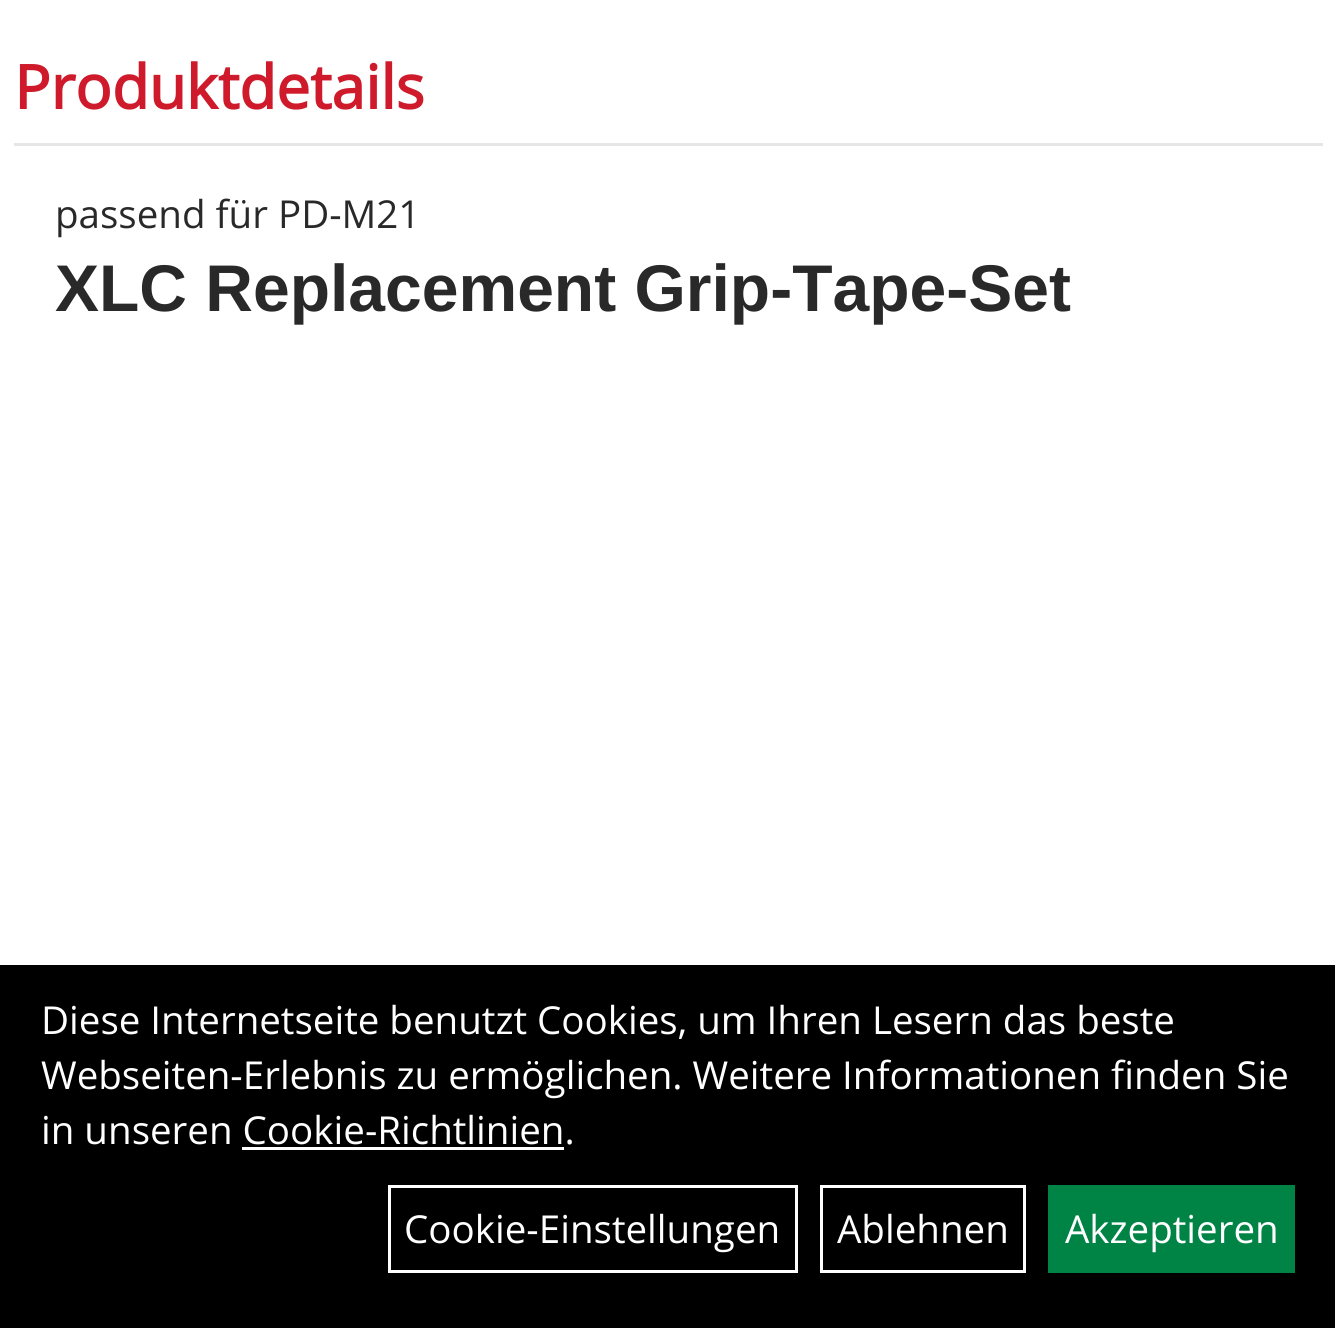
#include <cairo.h>
#include <math.h>
#include <stddef.h>

typedef struct { double x, y; const char *s; } line_t;

static void ink(cairo_t *ctx, unsigned color) {
    cairo_set_source_rgb(ctx, (color >> 16) / 255.0, (color >> 8 & 255) / 255.0, (color & 255) / 255.0);
}

int main(void) {
    cairo_surface_t *surface = cairo_image_surface_create(CAIRO_FORMAT_RGB24, 1335, 1328);
    cairo_t *ctx = cairo_create(surface);
    cairo_font_options_t *options = cairo_font_options_create();
    cairo_font_options_set_hint_metrics(options, CAIRO_HINT_METRICS_OFF);
    cairo_font_options_set_hint_style(options, CAIRO_HINT_STYLE_NONE);
    cairo_set_font_options(ctx, options);
    cairo_set_miter_limit(ctx, 4);
    ink(ctx, 0xFFFFFF);
    cairo_paint(ctx);
    cairo_select_font_face(ctx, "Open Sans", CAIRO_FONT_SLANT_NORMAL, CAIRO_FONT_WEIGHT_BOLD);
    cairo_set_font_size(ctx, 60.5);
    ink(ctx, 0xCE1A2B);
    cairo_move_to(ctx, 14, 109);
    cairo_show_text(ctx, "Produktdetails");
    ink(ctx, 0xE6E6E6);
    cairo_rectangle(ctx, 14, 143, 1309, 3);
    cairo_fill(ctx);
    cairo_select_font_face(ctx, "Open Sans", CAIRO_FONT_SLANT_NORMAL, CAIRO_FONT_WEIGHT_NORMAL);
    cairo_set_font_size(ctx, 38.5);
    ink(ctx, 0x292929);
    cairo_move_to(ctx, 55, 228);
    cairo_show_text(ctx, "passend für PD-M21");
    cairo_select_font_face(ctx, "Liberation Sans", CAIRO_FONT_SLANT_NORMAL, CAIRO_FONT_WEIGHT_BOLD);
    cairo_set_font_size(ctx, 66);
    cairo_move_to(ctx, 55, 311);
    cairo_show_text(ctx, "XLC Replacement Grip-Tape-Set");
    ink(ctx, 0x000000);
    cairo_rectangle(ctx, 0, 965, 1335, 363);
    cairo_fill(ctx);
    cairo_select_font_face(ctx, "Open Sans", CAIRO_FONT_SLANT_NORMAL, CAIRO_FONT_WEIGHT_NORMAL);
    cairo_set_font_size(ctx, 38.5);
    ink(ctx, 0xFFFFFF);
    {
        static const line_t items[] = {
            {41, 1034, "Diese Internetseite benutzt Cookies, um Ihren Lesern das beste"},
            {41, 1089, "Webseiten-Erlebnis zu ermöglichen. Weitere Informationen finden Sie"},
            {41, 1144, "in unseren Cookie-Richtlinien."},
        };
        for (size_t i = 0; i < sizeof items / sizeof *items; i++) {
            cairo_move_to(ctx, items[i].x, items[i].y);
            cairo_show_text(ctx, items[i].s);
        }
    }
    cairo_rectangle(ctx, 242, 1147, 322, 3);
    cairo_fill(ctx);
    cairo_rectangle(ctx, 389.5, 1186.5, 407, 85);
    cairo_set_line_width(ctx, 3);
    cairo_stroke(ctx);
    cairo_move_to(ctx, 404, 1243);
    cairo_show_text(ctx, "Cookie-Einstellungen");
    cairo_rectangle(ctx, 821.5, 1186.5, 203, 85);
    cairo_stroke(ctx);
    cairo_move_to(ctx, 837, 1243);
    cairo_show_text(ctx, "Ablehnen");
    ink(ctx, 0x008446);
    cairo_rectangle(ctx, 1048, 1185, 247, 88);
    cairo_fill(ctx);
    ink(ctx, 0xFFFFFF);
    cairo_move_to(ctx, 1065, 1243);
    cairo_show_text(ctx, "Akzeptieren");
    cairo_surface_write_to_png(surface, "image.png");
    cairo_font_options_destroy(options);
    cairo_destroy(ctx);
    cairo_surface_destroy(surface);
    return 0;
}
